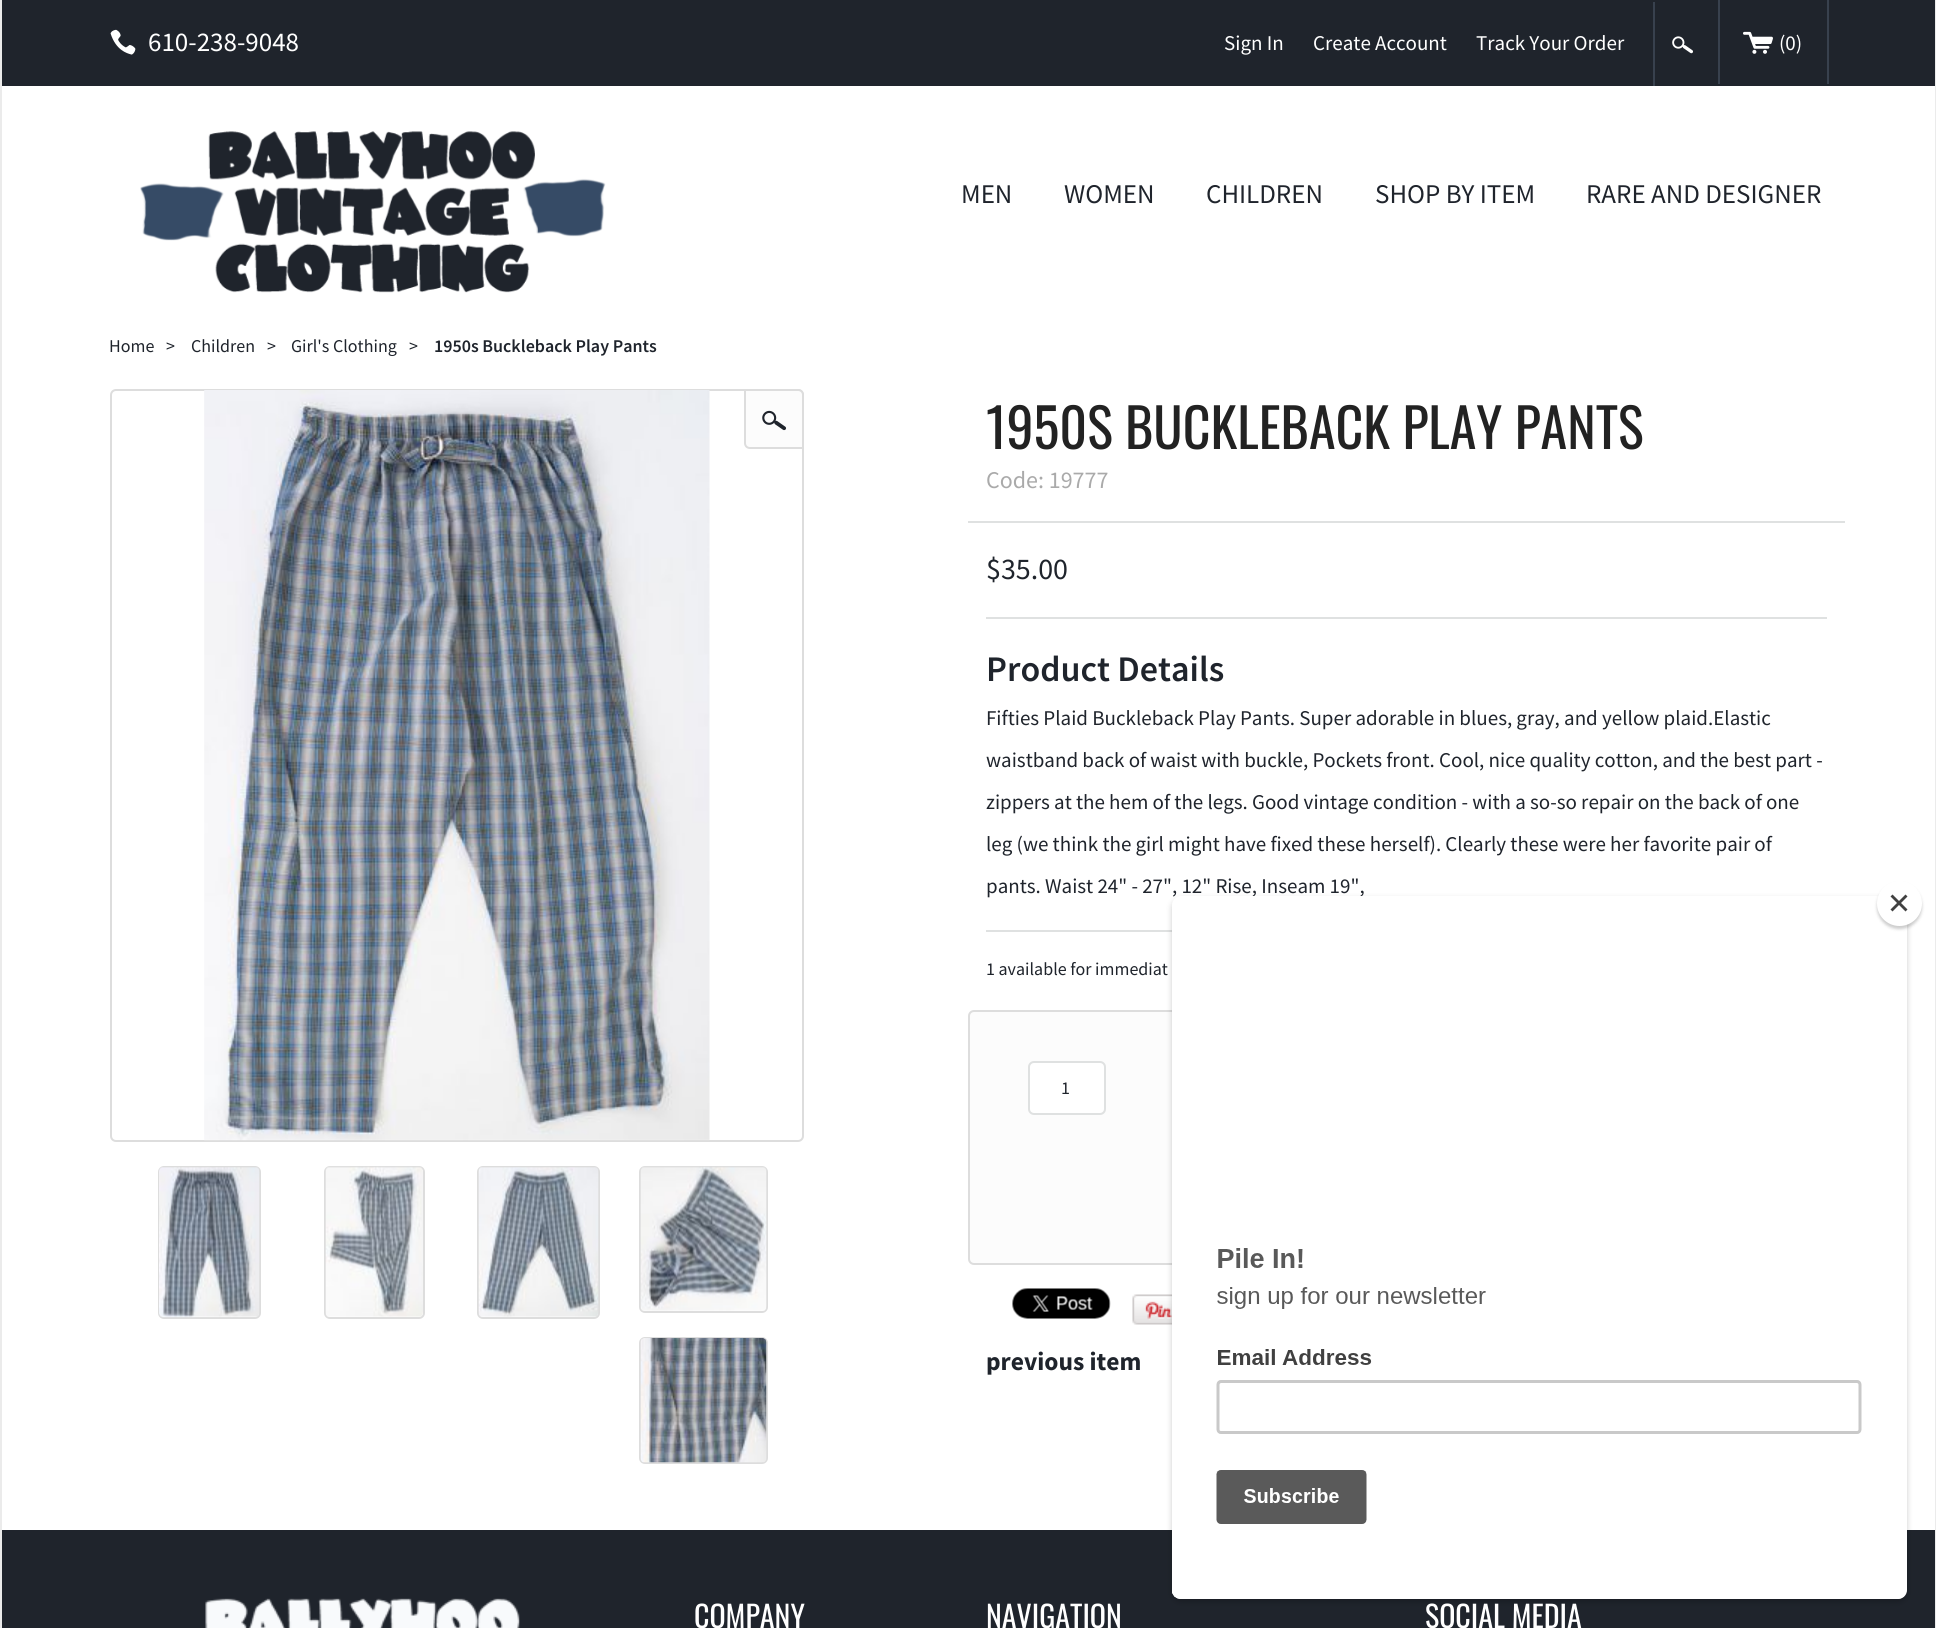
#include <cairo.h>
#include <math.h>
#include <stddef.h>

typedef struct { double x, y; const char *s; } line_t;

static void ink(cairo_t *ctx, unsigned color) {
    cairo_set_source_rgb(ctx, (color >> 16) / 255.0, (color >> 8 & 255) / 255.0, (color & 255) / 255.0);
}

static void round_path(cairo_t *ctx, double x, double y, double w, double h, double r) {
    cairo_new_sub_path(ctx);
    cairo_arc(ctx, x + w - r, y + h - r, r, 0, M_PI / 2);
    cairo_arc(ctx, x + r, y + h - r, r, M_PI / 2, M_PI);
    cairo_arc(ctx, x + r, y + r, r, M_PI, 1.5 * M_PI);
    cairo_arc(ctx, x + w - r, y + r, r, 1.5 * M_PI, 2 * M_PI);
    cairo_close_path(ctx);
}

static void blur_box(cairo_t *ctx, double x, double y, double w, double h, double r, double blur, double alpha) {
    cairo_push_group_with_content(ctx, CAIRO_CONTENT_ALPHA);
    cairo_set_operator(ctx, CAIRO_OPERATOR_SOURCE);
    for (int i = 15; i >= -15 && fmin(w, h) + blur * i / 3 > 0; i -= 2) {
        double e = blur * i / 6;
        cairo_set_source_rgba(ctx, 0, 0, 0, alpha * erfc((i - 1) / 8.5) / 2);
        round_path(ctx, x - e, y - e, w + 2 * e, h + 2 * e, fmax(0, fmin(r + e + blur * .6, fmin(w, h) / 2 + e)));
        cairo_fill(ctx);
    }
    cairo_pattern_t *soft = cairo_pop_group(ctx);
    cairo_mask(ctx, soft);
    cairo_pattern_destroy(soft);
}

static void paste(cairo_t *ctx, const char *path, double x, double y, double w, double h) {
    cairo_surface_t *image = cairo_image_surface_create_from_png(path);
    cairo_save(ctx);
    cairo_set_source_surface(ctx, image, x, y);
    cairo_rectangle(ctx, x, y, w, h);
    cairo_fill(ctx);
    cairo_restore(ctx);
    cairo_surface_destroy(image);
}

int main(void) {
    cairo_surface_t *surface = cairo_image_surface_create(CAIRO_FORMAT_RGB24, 1936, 1628);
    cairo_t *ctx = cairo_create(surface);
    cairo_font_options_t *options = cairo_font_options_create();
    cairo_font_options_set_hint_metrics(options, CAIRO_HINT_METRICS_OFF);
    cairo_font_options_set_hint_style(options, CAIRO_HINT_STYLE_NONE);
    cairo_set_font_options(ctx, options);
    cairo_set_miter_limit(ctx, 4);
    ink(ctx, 0xEBEBEB);
    cairo_paint(ctx);
    ink(ctx, 0xFFFFFF);
    cairo_rectangle(ctx, 2, 86, 1933, 1444);
    cairo_fill(ctx);
    ink(ctx, 0x1F242C);
    cairo_rectangle(ctx, 2, 0, 1933, 86);
    cairo_fill(ctx);
    paste(ctx, "media/1.png", 110, 29, 26, 26);
    cairo_select_font_face(ctx, "Source Sans Pro", CAIRO_FONT_SLANT_NORMAL, CAIRO_FONT_WEIGHT_NORMAL);
    cairo_set_font_size(ctx, 27);
    ink(ctx, 0xFFFFFF);
    cairo_move_to(ctx, 148, 51);
    cairo_show_text(ctx, "610-238-9048");
    cairo_set_font_size(ctx, 21);
    {
        static const line_t items[] = {
            {1224, 50, "Sign In"},
            {1313, 50, "Create Account"},
            {1476, 50, "Track Your Order"},
        };
        for (size_t i = 0; i < sizeof items / sizeof *items; i++) {
            cairo_move_to(ctx, items[i].x, items[i].y);
            cairo_show_text(ctx, items[i].s);
        }
    }
    ink(ctx, 0x38414E);
    cairo_rectangle(ctx, 1653, 2, 2, 84);
    cairo_fill(ctx);
    cairo_select_font_face(ctx, "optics", CAIRO_FONT_SLANT_NORMAL, CAIRO_FONT_WEIGHT_NORMAL);
    ink(ctx, 0xFFFFFF);
    cairo_move_to(ctx, 1672, 54);
    cairo_show_text(ctx, "1");
    ink(ctx, 0x38414E);
    cairo_rectangle(ctx, 1827, 0, 2, 84);
    cairo_fill(ctx);
    cairo_rectangle(ctx, 1718, 0, 2, 84);
    cairo_fill(ctx);
    cairo_set_font_size(ctx, 30);
    ink(ctx, 0xFFFFFF);
    cairo_move_to(ctx, 1743, 56);
    cairo_show_text(ctx, "0");
    cairo_select_font_face(ctx, "Source Sans Pro", CAIRO_FONT_SLANT_NORMAL, CAIRO_FONT_WEIGHT_NORMAL);
    cairo_set_font_size(ctx, 21);
    cairo_move_to(ctx, 1779, 50);
    cairo_show_text(ctx, "(0)");
    paste(ctx, "media/2.png", 140, 131, 466, 162);
    cairo_set_font_size(ctx, 27);
    ink(ctx, 0x1F242C);
    {
        static const line_t items[] = {
            {961, 203, "MEN"},
            {1064, 203, "WOMEN"},
            {1206, 203, "CHILDREN"},
            {1375, 203, "SHOP BY ITEM"},
            {1586, 203, "RARE AND DESIGNER"},
        };
        for (size_t i = 0; i < sizeof items / sizeof *items; i++) {
            cairo_move_to(ctx, items[i].x, items[i].y);
            cairo_show_text(ctx, items[i].s);
        }
    }
    cairo_set_font_size(ctx, 18);
    {
        static const line_t items[] = {
            {109, 352, "Home"},
            {166, 352, ">"},
            {191, 352, "Children"},
            {267, 352, ">"},
            {291, 352, "Girl's Clothing"},
            {409, 352, ">"},
        };
        for (size_t i = 0; i < sizeof items / sizeof *items; i++) {
            cairo_move_to(ctx, items[i].x, items[i].y);
            cairo_show_text(ctx, items[i].s);
        }
    }
    cairo_select_font_face(ctx, "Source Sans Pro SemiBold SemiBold", CAIRO_FONT_SLANT_NORMAL, CAIRO_FONT_WEIGHT_NORMAL);
    cairo_move_to(ctx, 434, 352);
    cairo_show_text(ctx, "1950s Buckleback Play Pants");
    round_path(ctx, 111, 390, 692, 751, 5);
    ink(ctx, 0xDDDDDD);
    cairo_stroke(ctx);
    paste(ctx, "media/3.png", 204, 390, 506, 751);
    ink(ctx, 0xFCFCFC);
    cairo_new_path(ctx);
    cairo_move_to(ctx, 745, 390);
    cairo_line_to(ctx, 798, 390);
    cairo_curve_to(ctx, 801, 390, 803, 392, 803, 395);
    cairo_line_to(ctx, 803, 448);
    cairo_line_to(ctx, 750, 448);
    cairo_curve_to(ctx, 747, 448, 745, 446, 745, 443);
    cairo_close_path(ctx);
    cairo_fill_preserve(ctx);
    ink(ctx, 0xDDDDDD);
    cairo_stroke(ctx);
    cairo_select_font_face(ctx, "optics", CAIRO_FONT_SLANT_NORMAL, CAIRO_FONT_WEIGHT_NORMAL);
    cairo_set_font_size(ctx, 24);
    ink(ctx, 0x1F242C);
    cairo_move_to(ctx, 762, 431);
    cairo_show_text(ctx, "1");
    round_path(ctx, 159, 1167, 101, 151, 5);
    ink(ctx, 0xDDDDDD);
    cairo_stroke(ctx);
    paste(ctx, "media/4.png", 159, 1167, 101, 151);
    round_path(ctx, 325, 1167, 99, 151, 5);
    cairo_stroke(ctx);
    paste(ctx, "media/5.png", 325, 1166, 98, 151);
    round_path(ctx, 478, 1167, 121, 151, 5);
    cairo_stroke(ctx);
    paste(ctx, "media/6.png", 478, 1167, 121, 150);
    round_path(ctx, 640, 1167, 127, 145, 5);
    cairo_stroke(ctx);
    paste(ctx, "media/7.png", 640, 1166, 127, 145);
    round_path(ctx, 640, 1338, 127, 125, 5);
    cairo_stroke(ctx);
    paste(ctx, "media/8.png", 640, 1338, 127, 125);
    cairo_select_font_face(ctx, "Oswald", CAIRO_FONT_SLANT_NORMAL, CAIRO_FONT_WEIGHT_NORMAL);
    cairo_set_font_size(ctx, 54);
    ink(ctx, 0x222222);
    cairo_move_to(ctx, 986, 449);
    cairo_show_text(ctx, "1950S BUCKLEBACK PLAY PANTS");
    cairo_select_font_face(ctx, "Source Sans Pro", CAIRO_FONT_SLANT_NORMAL, CAIRO_FONT_WEIGHT_NORMAL);
    cairo_set_font_size(ctx, 24);
    ink(ctx, 0xAAAAAA);
    cairo_move_to(ctx, 986, 488);
    cairo_show_text(ctx, "Code: 19777");
    ink(ctx, 0xDFE1E1);
    cairo_rectangle(ctx, 968, 521, 877, 2);
    cairo_fill(ctx);
    cairo_set_font_size(ctx, 30);
    ink(ctx, 0x1F242C);
    cairo_move_to(ctx, 986, 579);
    cairo_show_text(ctx, "$35.00");
    ink(ctx, 0xDFE1E1);
    cairo_rectangle(ctx, 986, 617, 841, 2);
    cairo_fill(ctx);
    cairo_select_font_face(ctx, "Source Sans Pro SemiBold SemiBold", CAIRO_FONT_SLANT_NORMAL, CAIRO_FONT_WEIGHT_NORMAL);
    cairo_set_font_size(ctx, 36);
    ink(ctx, 0x1F242C);
    cairo_move_to(ctx, 986, 681);
    cairo_show_text(ctx, "Product Details");
    cairo_select_font_face(ctx, "Source Sans Pro", CAIRO_FONT_SLANT_NORMAL, CAIRO_FONT_WEIGHT_NORMAL);
    cairo_set_font_size(ctx, 21);
    {
        static const line_t items[] = {
            {986, 725, "Fifties Plaid Buckleback Play Pants. Super adorable in blues, gray, and yellow plaid.Elastic"},
            {986, 767, "waistband back of waist with buckle, Pockets front. Cool, nice quality cotton, and the best part -"},
            {986, 809, "zippers at the hem of the legs. Good vintage condition - with a so-so repair on the back of one"},
            {986, 851, "leg (we think the girl might have fixed these herself). Clearly these were her favorite pair of"},
            {986, 893, "pants. Waist 24\" - 27\", 12\" Rise, Inseam 19\","},
        };
        for (size_t i = 0; i < sizeof items / sizeof *items; i++) {
            cairo_move_to(ctx, items[i].x, items[i].y);
            cairo_show_text(ctx, items[i].s);
        }
    }
    ink(ctx, 0xDFE1E1);
    cairo_rectangle(ctx, 986, 930, 186, 2);
    cairo_fill(ctx);
    cairo_set_font_size(ctx, 18);
    ink(ctx, 0x1F242C);
    cairo_move_to(ctx, 986, 975);
    cairo_show_text(ctx, "1 available for immediat");
    ink(ctx, 0xFCFCFC);
    round_path(ctx, 969, 1011, 875, 253, 5);
    cairo_fill_preserve(ctx);
    ink(ctx, 0xDDDDDD);
    cairo_stroke(ctx);
    ink(ctx, 0xFFFFFF);
    round_path(ctx, 1029, 1062, 76, 52, 5);
    cairo_fill_preserve(ctx);
    ink(ctx, 0xDFE1E1);
    cairo_stroke(ctx);
    ink(ctx, 0x1F242C);
    cairo_move_to(ctx, 1061, 1094);
    cairo_show_text(ctx, "1");
    paste(ctx, "media/9.png", 1012, 1288, 99, 31);
    paste(ctx, "media/10.png", 1132, 1294, 40, 31);
    cairo_select_font_face(ctx, "Source Sans Pro", CAIRO_FONT_SLANT_NORMAL, CAIRO_FONT_WEIGHT_BOLD);
    cairo_set_font_size(ctx, 25.5);
    cairo_move_to(ctx, 986, 1370);
    cairo_show_text(ctx, "previous item");
    cairo_rectangle(ctx, 2, 1530, 1933, 98);
    cairo_fill(ctx);
    ink(ctx, 0x000000);
    blur_box(ctx, 1172, 899, 735, 703, 9, 3, 0.2);
    ink(ctx, 0xFFFFFF);
    round_path(ctx, 1172, 896, 735, 703, 9);
    cairo_fill(ctx);
    ink(ctx, 0x000000);
    blur_box(ctx, 1877, 884, 45, 45, 22.5, 1.5, 0.2);
    ink(ctx, 0xFFFFFF);
    cairo_arc(ctx, 1899.5, 903.5, 22.5, 0, 2 * M_PI);
    cairo_fill(ctx);
    ink(ctx, 0x414141);
    cairo_new_path(ctx);
    cairo_move_to(ctx, 1905.5, 894.5);
    cairo_line_to(ctx, 1907.5, 896.5);
    cairo_line_to(ctx, 1892.5, 911.5);
    cairo_line_to(ctx, 1890.5, 909.5);
    cairo_close_path(ctx);
    cairo_fill(ctx);
    cairo_new_path(ctx);
    cairo_move_to(ctx, 1890.5, 896.5);
    cairo_line_to(ctx, 1892.5, 894.5);
    cairo_line_to(ctx, 1907.5, 909.5);
    cairo_line_to(ctx, 1905.5, 911.5);
    cairo_close_path(ctx);
    cairo_fill(ctx);
    paste(ctx, "media/11.png", 1172, 1248, 735, 351);
    paste(ctx, "media/12.png", 205, 1598, 315, 30);
    cairo_select_font_face(ctx, "Oswald", CAIRO_FONT_SLANT_NORMAL, CAIRO_FONT_WEIGHT_NORMAL);
    cairo_set_font_size(ctx, 30);
    ink(ctx, 0xFFFFFF);
    {
        static const line_t items[] = {
            {694, 1628, "COMPANY"},
            {986, 1628, "NAVIGATION"},
            {1425, 1628, "SOCIAL MEDIA"},
        };
        for (size_t i = 0; i < sizeof items / sizeof *items; i++) {
            cairo_move_to(ctx, items[i].x, items[i].y);
            cairo_show_text(ctx, items[i].s);
        }
    }
    cairo_surface_write_to_png(surface, "image.png");
    cairo_font_options_destroy(options);
    cairo_destroy(ctx);
    cairo_surface_destroy(surface);
    return 0;
}
